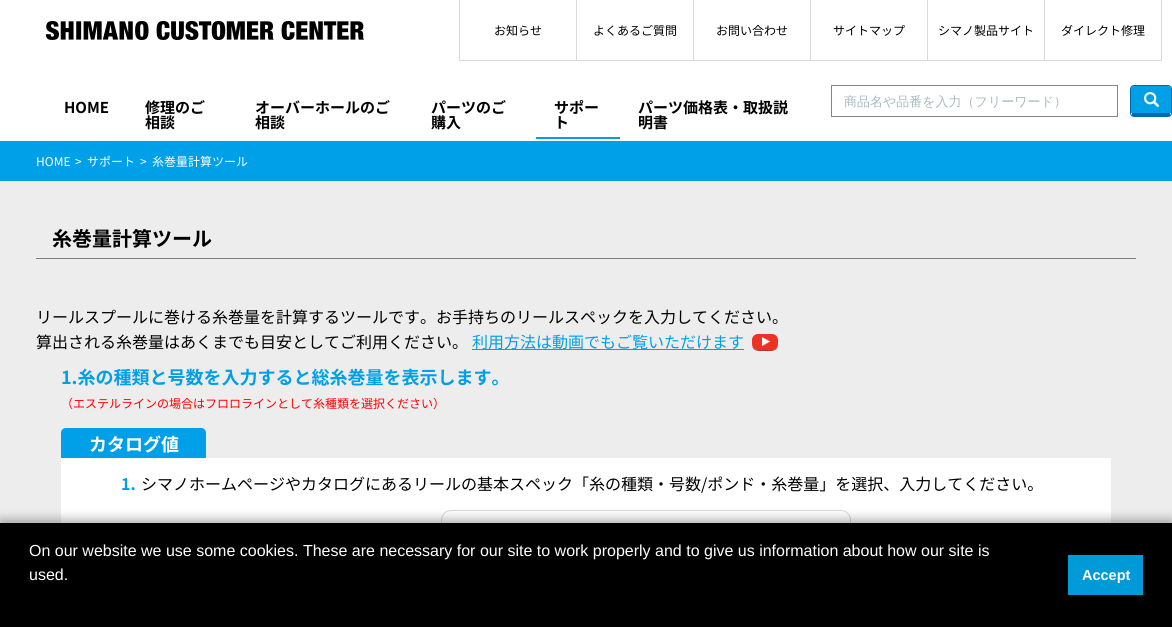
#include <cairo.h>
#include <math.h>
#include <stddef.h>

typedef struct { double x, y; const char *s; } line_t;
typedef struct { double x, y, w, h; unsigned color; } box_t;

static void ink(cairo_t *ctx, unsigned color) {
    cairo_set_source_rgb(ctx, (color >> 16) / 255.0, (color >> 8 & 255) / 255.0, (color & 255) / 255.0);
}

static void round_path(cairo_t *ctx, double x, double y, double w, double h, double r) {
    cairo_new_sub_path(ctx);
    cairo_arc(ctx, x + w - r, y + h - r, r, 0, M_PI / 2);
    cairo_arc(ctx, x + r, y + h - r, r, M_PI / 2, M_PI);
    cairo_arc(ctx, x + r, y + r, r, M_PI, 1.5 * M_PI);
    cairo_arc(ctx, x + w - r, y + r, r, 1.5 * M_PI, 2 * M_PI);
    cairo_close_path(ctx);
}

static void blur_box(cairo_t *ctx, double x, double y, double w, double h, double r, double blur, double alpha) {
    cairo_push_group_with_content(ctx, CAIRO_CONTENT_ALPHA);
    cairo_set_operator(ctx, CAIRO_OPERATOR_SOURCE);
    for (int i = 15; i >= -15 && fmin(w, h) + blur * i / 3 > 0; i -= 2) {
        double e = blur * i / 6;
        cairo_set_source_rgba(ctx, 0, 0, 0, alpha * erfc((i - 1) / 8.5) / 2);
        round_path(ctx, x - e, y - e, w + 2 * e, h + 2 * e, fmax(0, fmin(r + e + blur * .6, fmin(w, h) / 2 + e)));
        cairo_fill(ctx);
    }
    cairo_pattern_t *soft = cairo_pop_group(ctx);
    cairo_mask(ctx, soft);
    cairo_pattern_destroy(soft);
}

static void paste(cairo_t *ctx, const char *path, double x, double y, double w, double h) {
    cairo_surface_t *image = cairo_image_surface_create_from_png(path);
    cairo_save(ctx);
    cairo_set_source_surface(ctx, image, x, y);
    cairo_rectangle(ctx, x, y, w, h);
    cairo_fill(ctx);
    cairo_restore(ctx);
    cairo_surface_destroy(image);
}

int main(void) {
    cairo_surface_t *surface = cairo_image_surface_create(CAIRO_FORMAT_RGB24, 1172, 627);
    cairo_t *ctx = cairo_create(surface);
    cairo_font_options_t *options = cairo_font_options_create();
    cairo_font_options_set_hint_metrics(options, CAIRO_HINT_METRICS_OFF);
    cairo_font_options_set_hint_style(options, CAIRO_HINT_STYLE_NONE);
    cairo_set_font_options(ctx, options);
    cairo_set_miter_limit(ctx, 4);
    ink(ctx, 0xFFFFFF);
    cairo_paint(ctx);
    paste(ctx, "media/1.png", 46, 21, 318, 19);
    ink(ctx, 0xDADADA);
    cairo_rectangle(ctx, 459, 60, 585, 1);
    cairo_fill(ctx);
    cairo_rectangle(ctx, 459, 0, 1, 61);
    cairo_fill(ctx);
    cairo_select_font_face(ctx, "Noto Sans JP", CAIRO_FONT_SLANT_NORMAL, CAIRO_FONT_WEIGHT_NORMAL);
    cairo_set_font_size(ctx, 12);
    ink(ctx, 0x000000);
    cairo_move_to(ctx, 494, 35);
    cairo_show_text(ctx, "お知らせ");
    ink(ctx, 0xDADADA);
    cairo_rectangle(ctx, 576, 0, 1, 61);
    cairo_fill(ctx);
    ink(ctx, 0x000000);
    cairo_move_to(ctx, 593, 35);
    cairo_show_text(ctx, "よくあるご質問");
    ink(ctx, 0xDADADA);
    cairo_rectangle(ctx, 693, 0, 1, 61);
    cairo_fill(ctx);
    ink(ctx, 0x000000);
    cairo_move_to(ctx, 716, 35);
    cairo_show_text(ctx, "お問い合わせ");
    ink(ctx, 0xDADADA);
    cairo_rectangle(ctx, 810, 0, 1, 61);
    cairo_fill(ctx);
    ink(ctx, 0x000000);
    cairo_move_to(ctx, 833, 35);
    cairo_show_text(ctx, "サイトマップ");
    ink(ctx, 0xDADADA);
    cairo_rectangle(ctx, 927, 0, 1, 61);
    cairo_fill(ctx);
    ink(ctx, 0x000000);
    cairo_move_to(ctx, 938, 35);
    cairo_show_text(ctx, "シマノ製品サイト");
    {
        static const box_t items[] = {
            {1161, 0, 1, 61, 0xDADADA},
            {1044, 60, 118, 1, 0xDADADA},
            {1044, 0, 1, 61, 0xDADADA},
        };
        for (size_t i = 0; i < sizeof items / sizeof *items; i++) {
            ink(ctx, items[i].color);
            cairo_rectangle(ctx, items[i].x, items[i].y, items[i].w, items[i].h);
            cairo_fill(ctx);
        }
    }
    ink(ctx, 0x000000);
    cairo_move_to(ctx, 1061, 35);
    cairo_show_text(ctx, "ダイレクト修理");
    cairo_select_font_face(ctx, "Noto Sans JP", CAIRO_FONT_SLANT_NORMAL, CAIRO_FONT_WEIGHT_BOLD);
    cairo_set_font_size(ctx, 15);
    {
        static const line_t items[] = {
            {64, 113, "HOME"},
            {145, 113, "修理のご"},
            {145, 128, "相談"},
            {255, 113, "オーバーホールのご"},
            {255, 128, "相談"},
            {431, 113, "パーツのご"},
            {431, 128, "購入"},
            {554, 113, "サポー"},
            {554, 128, "ト"},
        };
        for (size_t i = 0; i < sizeof items / sizeof *items; i++) {
            cairo_move_to(ctx, items[i].x, items[i].y);
            cairo_show_text(ctx, items[i].s);
        }
    }
    ink(ctx, 0x00A0E9);
    cairo_rectangle(ctx, 536, 137, 84, 2);
    cairo_fill(ctx);
    ink(ctx, 0x000000);
    cairo_move_to(ctx, 638, 113);
    cairo_show_text(ctx, "パーツ価格表・取扱説");
    cairo_move_to(ctx, 638, 128);
    cairo_show_text(ctx, "明書");
    cairo_rectangle(ctx, 831.5, 85.5, 286, 31);
    ink(ctx, 0x858585);
    cairo_set_line_width(ctx, 1);
    cairo_stroke(ctx);
    cairo_select_font_face(ctx, "WenQuanYi Zen Hei Medium", CAIRO_FONT_SLANT_NORMAL, CAIRO_FONT_WEIGHT_NORMAL);
    cairo_set_font_size(ctx, 13);
    ink(ctx, 0xA7B9C0);
    cairo_move_to(ctx, 844, 106);
    cairo_show_text(ctx, "商品名や品番を入力（フリーワード）");
    ink(ctx, 0x00A0E9);
    cairo_new_path(ctx);
    cairo_move_to(ctx, 1134, 86);
    cairo_line_to(ctx, 1168, 86);
    cairo_curve_to(ctx, 1170, 86, 1171, 87, 1171, 89);
    cairo_line_to(ctx, 1171, 113);
    cairo_line_to(ctx, 1131, 113);
    cairo_line_to(ctx, 1131, 89);
    cairo_curve_to(ctx, 1131, 87, 1132, 86, 1134, 86);
    cairo_close_path(ctx);
    cairo_fill(ctx);
    paste(ctx, "media/2.png", 1144, 92, 15, 15);
    round_path(ctx, 1130.5, 85.5, 41, 31, 3.5);
    ink(ctx, 0x0068B7);
    cairo_stroke(ctx);
    cairo_rectangle(ctx, 1132, 113, 38, 3);
    cairo_fill(ctx);
    ink(ctx, 0x00A0E9);
    cairo_rectangle(ctx, 0, 141, 1172, 40);
    cairo_fill(ctx);
    cairo_select_font_face(ctx, "Noto Sans JP", CAIRO_FONT_SLANT_NORMAL, CAIRO_FONT_WEIGHT_NORMAL);
    cairo_set_font_size(ctx, 12);
    ink(ctx, 0xFFFFFF);
    {
        static const line_t items[] = {
            {36, 166, "HOME"},
            {75, 166, ">"},
            {87, 166, "サポート"},
            {140, 166, ">"},
            {152, 166, "糸巻量計算ツール"},
        };
        for (size_t i = 0; i < sizeof items / sizeof *items; i++) {
            cairo_move_to(ctx, items[i].x, items[i].y);
            cairo_show_text(ctx, items[i].s);
        }
    }
    ink(ctx, 0xEEEDED);
    cairo_rectangle(ctx, 0, 181, 1172, 342);
    cairo_fill(ctx);
    ink(ctx, 0x7E7E7E);
    cairo_rectangle(ctx, 36, 258, 1100, 1);
    cairo_fill(ctx);
    cairo_select_font_face(ctx, "Noto Sans JP", CAIRO_FONT_SLANT_NORMAL, CAIRO_FONT_WEIGHT_BOLD);
    cairo_set_font_size(ctx, 20);
    ink(ctx, 0x000000);
    cairo_move_to(ctx, 52, 246);
    cairo_show_text(ctx, "糸巻量計算ツール");
    cairo_select_font_face(ctx, "Noto Sans JP", CAIRO_FONT_SLANT_NORMAL, CAIRO_FONT_WEIGHT_NORMAL);
    cairo_set_font_size(ctx, 16);
    cairo_move_to(ctx, 36, 323);
    cairo_show_text(ctx, "リールスプールに巻ける糸巻量を計算するツールです。お手持ちのリールスペックを入力してください。");
    cairo_move_to(ctx, 36, 348);
    cairo_show_text(ctx, "算出される糸巻量はあくまでも目安としてご利用ください。");
    ink(ctx, 0x00A0E9);
    cairo_rectangle(ctx, 472, 349, 272, 1);
    cairo_fill(ctx);
    cairo_move_to(ctx, 472, 348);
    cairo_show_text(ctx, "利用方法は動画でもご覧いただけます");
    ink(ctx, 0xA73228);
    cairo_new_path(ctx);
    cairo_move_to(ctx, 752, 344);
    cairo_curve_to(ctx, 752, 352, 759, 351, 765, 351);
    cairo_curve_to(ctx, 771, 351, 778, 352, 778, 344);
    cairo_curve_to(ctx, 778, 351, 770, 350, 765, 350);
    cairo_curve_to(ctx, 760, 350, 752, 351, 752, 344);
    cairo_close_path(ctx);
    cairo_fill(ctx);
    ink(ctx, 0xEC3323);
    round_path(ctx, 752, 334, 26, 16, 6);
    cairo_fill(ctx);
    paste(ctx, "media/3.png", 762, 337, 8, 9);
    cairo_select_font_face(ctx, "Noto Sans JP", CAIRO_FONT_SLANT_NORMAL, CAIRO_FONT_WEIGHT_BOLD);
    cairo_set_font_size(ctx, 18);
    ink(ctx, 0x00A0E9);
    cairo_move_to(ctx, 61, 384);
    cairo_show_text(ctx, "1.糸の種類と号数を入力すると総糸巻量を表示します。");
    cairo_select_font_face(ctx, "Noto Sans JP", CAIRO_FONT_SLANT_NORMAL, CAIRO_FONT_WEIGHT_NORMAL);
    cairo_set_font_size(ctx, 12);
    ink(ctx, 0xFF0000);
    cairo_move_to(ctx, 61, 408);
    cairo_show_text(ctx, "（エステルラインの場合はフロロラインとして糸種類を選択ください）");
    ink(ctx, 0x00A0E9);
    cairo_new_path(ctx);
    cairo_move_to(ctx, 66, 428);
    cairo_line_to(ctx, 201, 428);
    cairo_curve_to(ctx, 204, 428, 206, 430, 206, 433);
    cairo_line_to(ctx, 206, 458);
    cairo_line_to(ctx, 61, 458);
    cairo_line_to(ctx, 61, 433);
    cairo_curve_to(ctx, 61, 430, 63, 428, 66, 428);
    cairo_close_path(ctx);
    cairo_fill(ctx);
    cairo_select_font_face(ctx, "Noto Sans JP", CAIRO_FONT_SLANT_NORMAL, CAIRO_FONT_WEIGHT_BOLD);
    cairo_set_font_size(ctx, 18);
    ink(ctx, 0xFFFFFF);
    cairo_move_to(ctx, 89, 451);
    cairo_show_text(ctx, "カタログ値");
    cairo_rectangle(ctx, 61, 458, 1050, 65);
    cairo_fill(ctx);
    cairo_set_font_size(ctx, 16);
    ink(ctx, 0x00A0E9);
    cairo_move_to(ctx, 121, 490);
    cairo_show_text(ctx, "1.");
    cairo_select_font_face(ctx, "Noto Sans JP", CAIRO_FONT_SLANT_NORMAL, CAIRO_FONT_WEIGHT_NORMAL);
    ink(ctx, 0x000000);
    cairo_move_to(ctx, 141, 490);
    cairo_show_text(ctx, "シマノホームページやカタログにあるリールの基本スペック「糸の種類・号数/ポンド・糸巻量」を選択、入力してください。");
    round_path(ctx, 441.5, 510.5, 409, 27, 9.5);
    ink(ctx, 0xD9D9D9);
    cairo_stroke(ctx);
    ink(ctx, 0x000000);
    blur_box(ctx, 0, 519, 1172, 104, 0, 5, 0.3);
    ink(ctx, 0x000000);
    cairo_rectangle(ctx, 0, 523, 1172, 104);
    cairo_fill(ctx);
    cairo_select_font_face(ctx, "Liberation Sans", CAIRO_FONT_SLANT_NORMAL, CAIRO_FONT_WEIGHT_NORMAL);
    ink(ctx, 0xFFFFFF);
    cairo_move_to(ctx, 29, 556);
    cairo_show_text(ctx, "On our website we use some cookies. These are necessary for our site to work properly and to give us information about how our site is");
    cairo_move_to(ctx, 29, 580);
    cairo_show_text(ctx, "used.");
    ink(ctx, 0x009AD9);
    cairo_rectangle(ctx, 1068, 555, 75, 40);
    cairo_fill(ctx);
    cairo_select_font_face(ctx, "Liberation Sans", CAIRO_FONT_SLANT_NORMAL, CAIRO_FONT_WEIGHT_BOLD);
    cairo_set_font_size(ctx, 14.5);
    ink(ctx, 0xFFFFFF);
    cairo_move_to(ctx, 1082, 580);
    cairo_show_text(ctx, "Accept");
    cairo_surface_write_to_png(surface, "image.png");
    cairo_font_options_destroy(options);
    cairo_destroy(ctx);
    cairo_surface_destroy(surface);
    return 0;
}
